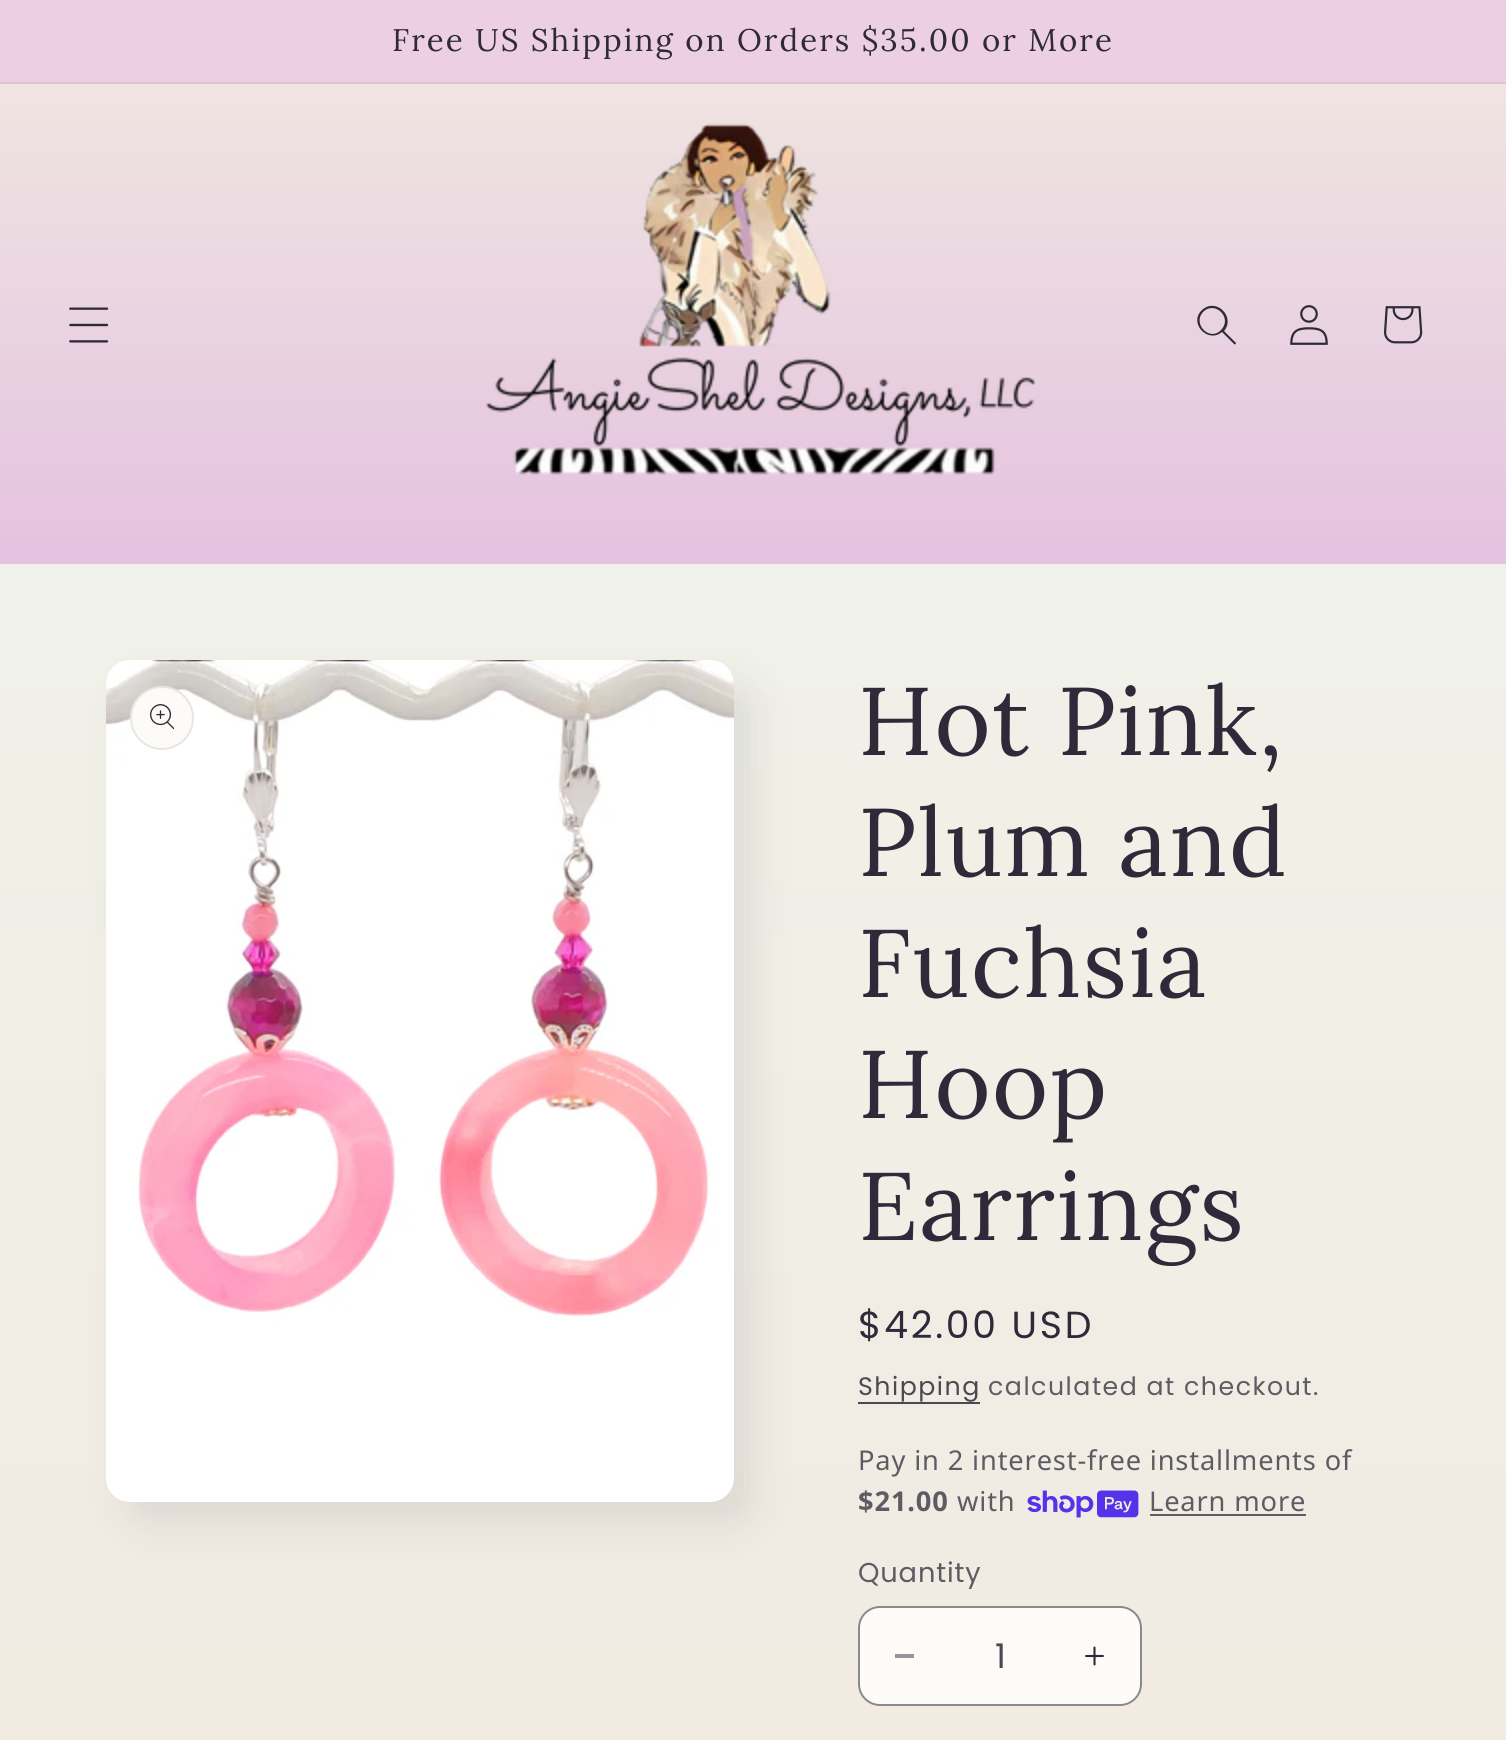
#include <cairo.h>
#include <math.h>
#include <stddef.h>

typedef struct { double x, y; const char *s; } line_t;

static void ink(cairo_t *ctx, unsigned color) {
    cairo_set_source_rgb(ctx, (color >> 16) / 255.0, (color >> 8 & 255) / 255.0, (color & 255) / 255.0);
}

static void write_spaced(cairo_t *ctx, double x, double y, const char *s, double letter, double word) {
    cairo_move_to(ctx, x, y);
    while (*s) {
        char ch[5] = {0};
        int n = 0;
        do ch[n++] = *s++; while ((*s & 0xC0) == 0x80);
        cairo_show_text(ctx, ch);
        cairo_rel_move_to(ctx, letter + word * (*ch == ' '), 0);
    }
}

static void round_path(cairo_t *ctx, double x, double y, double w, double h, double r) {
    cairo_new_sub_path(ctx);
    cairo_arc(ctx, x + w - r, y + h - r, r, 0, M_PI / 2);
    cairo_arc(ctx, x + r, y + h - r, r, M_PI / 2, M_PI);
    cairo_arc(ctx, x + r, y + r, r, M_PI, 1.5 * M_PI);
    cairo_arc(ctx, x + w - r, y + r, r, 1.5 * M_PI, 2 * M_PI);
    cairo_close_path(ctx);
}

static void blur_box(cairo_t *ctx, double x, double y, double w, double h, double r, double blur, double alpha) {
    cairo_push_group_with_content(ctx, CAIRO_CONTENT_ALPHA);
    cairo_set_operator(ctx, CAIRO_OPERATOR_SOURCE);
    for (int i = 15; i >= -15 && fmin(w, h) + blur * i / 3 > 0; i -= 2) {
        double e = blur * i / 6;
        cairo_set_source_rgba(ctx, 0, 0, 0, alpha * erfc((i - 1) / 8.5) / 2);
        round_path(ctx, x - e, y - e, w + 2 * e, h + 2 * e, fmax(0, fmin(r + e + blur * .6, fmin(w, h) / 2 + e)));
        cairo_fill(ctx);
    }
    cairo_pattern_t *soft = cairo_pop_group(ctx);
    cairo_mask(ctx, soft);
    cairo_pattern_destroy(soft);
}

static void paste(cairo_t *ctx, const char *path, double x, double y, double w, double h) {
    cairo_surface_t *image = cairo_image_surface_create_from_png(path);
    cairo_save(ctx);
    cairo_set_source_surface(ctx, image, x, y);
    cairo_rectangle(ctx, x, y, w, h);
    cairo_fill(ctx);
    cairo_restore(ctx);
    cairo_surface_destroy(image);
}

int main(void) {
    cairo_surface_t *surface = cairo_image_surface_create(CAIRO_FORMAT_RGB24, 1506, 1740);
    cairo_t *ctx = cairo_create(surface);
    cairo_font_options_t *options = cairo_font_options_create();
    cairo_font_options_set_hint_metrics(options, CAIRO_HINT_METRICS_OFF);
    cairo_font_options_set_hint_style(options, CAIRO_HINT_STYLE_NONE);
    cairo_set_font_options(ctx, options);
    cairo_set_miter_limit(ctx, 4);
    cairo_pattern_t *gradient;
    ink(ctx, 0xFFFFFF);
    cairo_paint(ctx);
    gradient = cairo_pattern_create_linear(753, 0, 753, 1740);
    cairo_pattern_add_color_stop_rgba(gradient, 0, 0.941, 0.957, 0.925, 1);
    cairo_pattern_add_color_stop_rgba(gradient, 1, 0.945, 0.922, 0.886, 1);
    cairo_set_source(ctx, gradient);
    cairo_pattern_destroy(gradient);
    cairo_rectangle(ctx, 0, 564, 1506, 1176);
    cairo_fill(ctx);
    gradient = cairo_pattern_create_linear(753, 0, 753, 1740);
    cairo_pattern_add_color_stop_rgba(gradient, 0.12, 0.929, 0.812, 0.894, 1);
    cairo_pattern_add_color_stop_rgba(gradient, 1, 0.945, 0.922, 0.886, 1);
    cairo_set_source(ctx, gradient);
    cairo_pattern_destroy(gradient);
    cairo_rectangle(ctx, 0, 0, 1506, 82);
    cairo_fill(ctx);
    ink(ctx, 0xDEC2D6);
    cairo_rectangle(ctx, 0, 82, 1506, 2);
    cairo_fill(ctx);
    cairo_select_font_face(ctx, "Lora", CAIRO_FONT_SLANT_NORMAL, CAIRO_FONT_WEIGHT_NORMAL);
    cairo_set_font_size(ctx, 31.2);
    ink(ctx, 0x2E2A39);
    write_spaced(ctx, 392, 51, "Free US Shipping on Orders $35.00 or More", 2.1, 0);
    gradient = cairo_pattern_create_linear(753, 1740, 753, 0);
    cairo_pattern_add_color_stop_rgba(gradient, 0.16, 0.831, 0.675, 0.886, 1);
    cairo_pattern_add_color_stop_rgba(gradient, 0.3, 0.839, 0.569, 0.867, 1);
    cairo_pattern_add_color_stop_rgba(gradient, 1, 0.945, 0.922, 0.886, 1);
    cairo_set_source(ctx, gradient);
    cairo_pattern_destroy(gradient);
    cairo_rectangle(ctx, 0, 84, 1506, 480);
    cairo_fill(ctx);
    paste(ctx, "media/1.png", 69, 307, 40, 36);
    paste(ctx, "media/2.png", 485, 123, 551, 352);
    ink(ctx, 0x2E2A39);
    cairo_set_fill_rule(ctx, CAIRO_FILL_RULE_EVEN_ODD);
    cairo_new_path(ctx);
    cairo_move_to(ctx, 1221, 330);
    cairo_curve_to(ctx, 1210, 342, 1192, 324, 1203, 312);
    cairo_curve_to(ctx, 1215, 300, 1233, 318, 1221, 330);
    cairo_move_to(ctx, 1222, 332);
    cairo_curve_to(ctx, 1208, 344, 1188, 323, 1202, 310);
    cairo_curve_to(ctx, 1216, 297, 1236, 317, 1224, 331);
    cairo_line_to(ctx, 1236, 343);
    cairo_curve_to(ctx, 1236, 344, 1235, 345, 1234, 344);
    cairo_close_path(ctx);
    cairo_fill(ctx);
    paste(ctx, "media/3.png", 1290, 305, 38, 40);
    paste(ctx, "media/4.png", 1384, 306, 39, 38);
    ink(ctx, 0x2E2A39);
    blur_box(ctx, 126, 684, 628, 842, 24, 20, 0.1);
    paste(ctx, "media/5.png", 106, 660, 628, 842);
    ink(ctx, 0xFDFBF7);
    cairo_arc(ctx, 162, 718, 32, 0, 2 * M_PI);
    cairo_fill(ctx);
    cairo_arc(ctx, 162, 718, 31, 0, 2 * M_PI);
    cairo_set_source_rgba(ctx, 0.18, 0.165, 0.224, 0.1);
    cairo_stroke(ctx);
    paste(ctx, "media/6.png", 150, 704, 24, 26);
    cairo_set_font_size(ctx, 96);
    ink(ctx, 0x2E2A39);
    {
        static const line_t items[] = {
            {858, 755, "Hot Pink,"},
            {858, 876, "Plum and"},
            {858, 997, "Fuchsia"},
            {858, 1118, "Hoop"},
            {858, 1240, "Earrings"},
        };
        for (size_t i = 0; i < sizeof items / sizeof *items; i++) {
            write_spaced(ctx, items[i].x, items[i].y, items[i].s, 1.5, 0);
        }
    }
    cairo_select_font_face(ctx, "Poppins", CAIRO_FONT_SLANT_NORMAL, CAIRO_FONT_WEIGHT_NORMAL);
    cairo_set_font_size(ctx, 37.75);
    write_spaced(ctx, 858, 1338, "$42.00 USD", 2.75, 0);
    cairo_set_font_size(ctx, 25.25);
    ink(ctx, 0x4B4753);
    write_spaced(ctx, 858, 1395, "Shipping", 1.5, 0);
    cairo_rectangle(ctx, 858, 1402, 122, 2);
    cairo_fill(ctx);
    ink(ctx, 0x5F5B64);
    write_spaced(ctx, 988, 1395, "calculated at checkout.", 1.5, 0);
    cairo_select_font_face(ctx, "Noto Sans", CAIRO_FONT_SLANT_NORMAL, CAIRO_FONT_WEIGHT_NORMAL);
    cairo_set_font_size(ctx, 27.25);
    write_spaced(ctx, 858, 1470, "Pay in 2 interest-free installments of", 0.85, 0);
    cairo_select_font_face(ctx, "Noto Sans", CAIRO_FONT_SLANT_NORMAL, CAIRO_FONT_WEIGHT_BOLD);
    write_spaced(ctx, 858, 1511, "$21.00", 0.85, 0);
    cairo_select_font_face(ctx, "Noto Sans", CAIRO_FONT_SLANT_NORMAL, CAIRO_FONT_WEIGHT_NORMAL);
    write_spaced(ctx, 957, 1511, "with", 0.85, 0);
    paste(ctx, "media/7.png", 1027, 1490, 112, 28);
    write_spaced(ctx, 1149, 1511, "Learn more", 0.85, 0);
    cairo_rectangle(ctx, 1150, 1514, 156, 2);
    cairo_fill(ctx);
    cairo_select_font_face(ctx, "Poppins", CAIRO_FONT_SLANT_NORMAL, CAIRO_FONT_WEIGHT_NORMAL);
    write_spaced(ctx, 858, 1582, "Quantity", 0.85, 0);
    ink(ctx, 0xFDFBF7);
    round_path(ctx, 858, 1606, 284, 100, 22);
    cairo_fill(ctx);
    ink(ctx, 0x969398);
    cairo_rectangle(ctx, 895, 1654, 19, 4);
    cairo_fill(ctx);
    paste(ctx, "media/8.png", 1085, 1646, 19, 20);
    round_path(ctx, 859, 1607, 282, 98, 21);
    cairo_set_source_rgba(ctx, 0.18, 0.165, 0.224, 0.55);
    cairo_stroke(ctx);
    cairo_set_font_size(ctx, 34);
    ink(ctx, 0x4B4753);
    cairo_move_to(ctx, 995, 1668);
    cairo_show_text(ctx, "1");
    cairo_surface_write_to_png(surface, "image.png");
    cairo_font_options_destroy(options);
    cairo_destroy(ctx);
    cairo_surface_destroy(surface);
    return 0;
}
